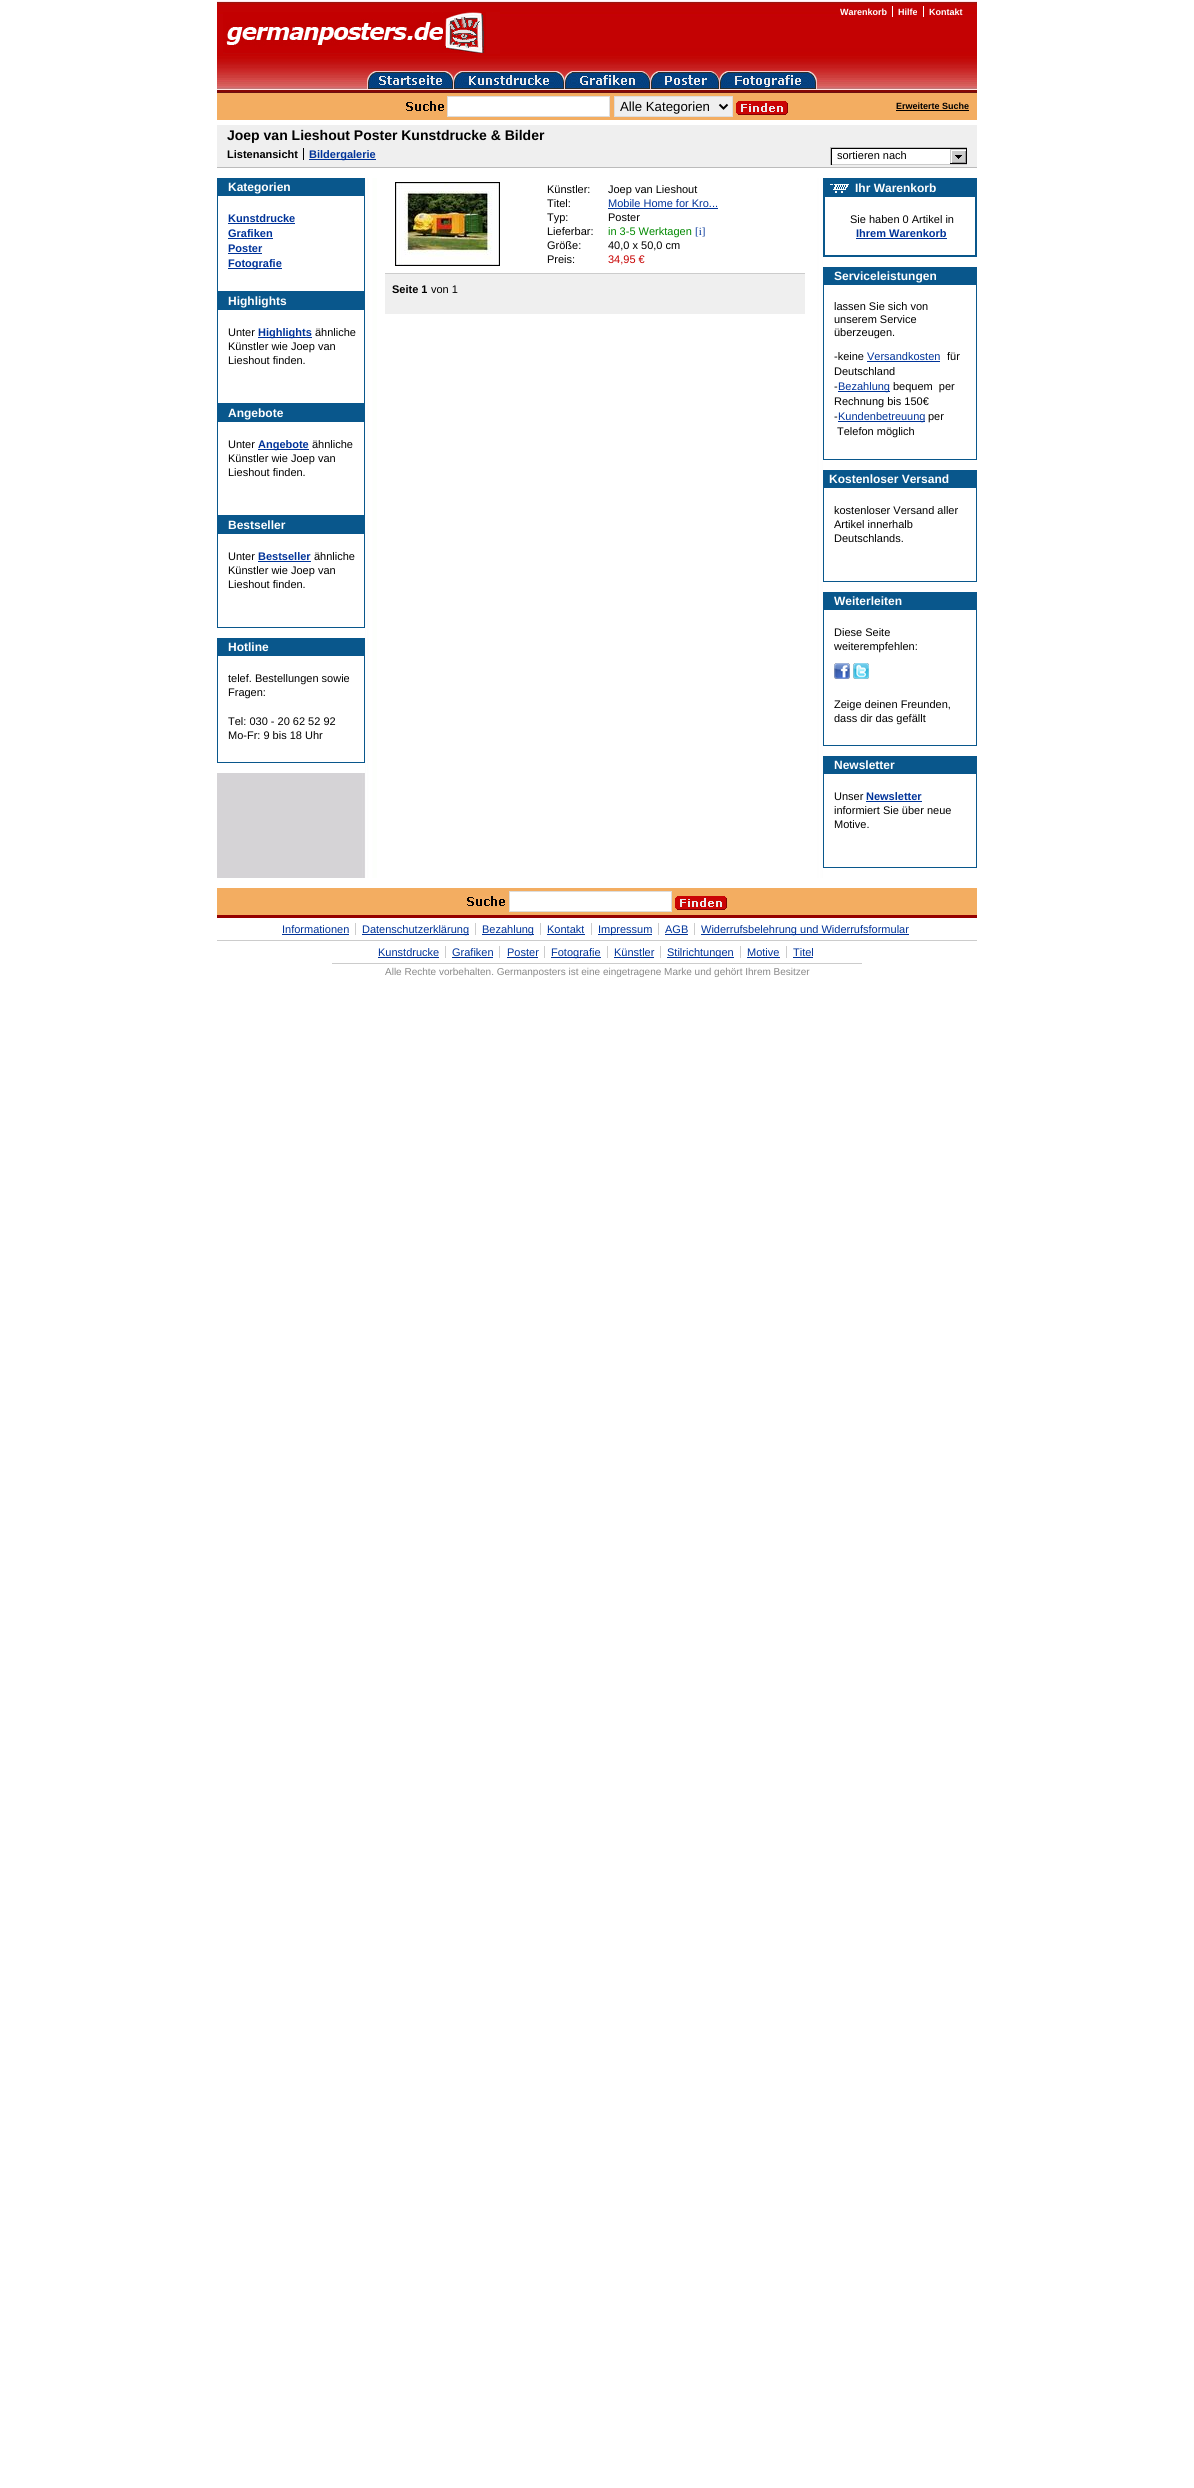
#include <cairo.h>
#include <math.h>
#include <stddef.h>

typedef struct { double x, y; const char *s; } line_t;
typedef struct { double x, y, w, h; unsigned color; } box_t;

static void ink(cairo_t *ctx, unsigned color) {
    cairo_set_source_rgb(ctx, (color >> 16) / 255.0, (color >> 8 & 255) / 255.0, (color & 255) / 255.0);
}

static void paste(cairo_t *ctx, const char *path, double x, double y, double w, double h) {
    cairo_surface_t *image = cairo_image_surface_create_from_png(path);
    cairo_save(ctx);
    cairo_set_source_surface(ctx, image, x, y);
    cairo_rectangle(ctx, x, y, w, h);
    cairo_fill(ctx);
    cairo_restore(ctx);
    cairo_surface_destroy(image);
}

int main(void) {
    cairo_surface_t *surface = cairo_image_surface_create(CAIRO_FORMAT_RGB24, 1194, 2488);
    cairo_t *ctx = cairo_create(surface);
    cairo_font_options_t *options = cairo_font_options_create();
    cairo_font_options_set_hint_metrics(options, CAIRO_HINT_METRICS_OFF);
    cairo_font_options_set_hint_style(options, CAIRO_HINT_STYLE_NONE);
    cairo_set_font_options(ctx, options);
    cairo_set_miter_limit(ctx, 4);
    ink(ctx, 0xFFFFFF);
    cairo_paint(ctx);
    paste(ctx, "media/1.png", 217, 0, 760, 93);
    paste(ctx, "media/2.png", 223, 12, 277, 42);
    ink(ctx, 0xFFFFFF);
    cairo_rectangle(ctx, 892, 6, 1, 11);
    cairo_fill(ctx);
    cairo_select_font_face(ctx, "Liberation Sans", CAIRO_FONT_SLANT_NORMAL, CAIRO_FONT_WEIGHT_BOLD);
    cairo_set_font_size(ctx, 9);
    cairo_move_to(ctx, 840, 15);
    cairo_show_text(ctx, "Warenkorb");
    cairo_rectangle(ctx, 923, 6, 1, 11);
    cairo_fill(ctx);
    cairo_move_to(ctx, 898, 15);
    cairo_show_text(ctx, "Hilfe");
    cairo_move_to(ctx, 929, 15);
    cairo_show_text(ctx, "Kontakt");
    paste(ctx, "media/3.png", 367, 71, 87, 18);
    paste(ctx, "media/4.png", 454, 71, 111, 18);
    paste(ctx, "media/5.png", 565, 71, 86, 18);
    paste(ctx, "media/6.png", 651, 71, 69, 18);
    paste(ctx, "media/7.png", 720, 71, 97, 18);
    ink(ctx, 0xF3AD61);
    cairo_rectangle(ctx, 217, 93, 760, 27);
    cairo_fill(ctx);
    paste(ctx, "media/8.png", 406, 101, 38, 10);
    ink(ctx, 0xFFFFFF);
    cairo_rectangle(ctx, 447.5, 96.5, 162, 20);
    cairo_fill_preserve(ctx);
    ink(ctx, 0xDDDDDD);
    cairo_set_line_width(ctx, 1);
    cairo_stroke(ctx);
    ink(ctx, 0xEFEFEF);
    cairo_rectangle(ctx, 614.5, 96.5, 118, 20);
    cairo_fill_preserve(ctx);
    ink(ctx, 0xDDDDDD);
    cairo_stroke(ctx);
    cairo_new_path(ctx);
    cairo_move_to(ctx, 719.5, 104.5);
    cairo_line_to(ctx, 723.5, 108.5);
    cairo_line_to(ctx, 727.5, 104.5);
    ink(ctx, 0x000000);
    cairo_set_line_width(ctx, 2);
    cairo_stroke(ctx);
    cairo_select_font_face(ctx, "Liberation Sans", CAIRO_FONT_SLANT_NORMAL, CAIRO_FONT_WEIGHT_NORMAL);
    cairo_set_font_size(ctx, 13.25);
    cairo_move_to(ctx, 620, 111);
    cairo_show_text(ctx, "Alle Kategorien");
    paste(ctx, "media/9.png", 736, 101, 52, 14);
    cairo_select_font_face(ctx, "Liberation Sans", CAIRO_FONT_SLANT_NORMAL, CAIRO_FONT_WEIGHT_BOLD);
    cairo_set_font_size(ctx, 9);
    cairo_move_to(ctx, 896, 109);
    cairo_show_text(ctx, "Erweiterte Suche");
    {
        static const box_t items[] = {
            {896, 110, 73, 1, 0x000000},
            {217, 125, 760, 42, 0xEFEFEF},
            {217, 167, 760, 1, 0xBBBBBB},
        };
        for (size_t i = 0; i < sizeof items / sizeof *items; i++) {
            ink(ctx, items[i].color);
            cairo_rectangle(ctx, items[i].x, items[i].y, items[i].w, items[i].h);
            cairo_fill(ctx);
        }
    }
    cairo_set_font_size(ctx, 14);
    ink(ctx, 0x000000);
    cairo_move_to(ctx, 227, 140);
    cairo_show_text(ctx, "Joep van Lieshout Poster Kunstdrucke & Bilder");
    cairo_rectangle(ctx, 303, 148, 1, 12);
    cairo_fill(ctx);
    cairo_set_font_size(ctx, 11);
    cairo_move_to(ctx, 227, 158);
    cairo_show_text(ctx, "Listenansicht");
    ink(ctx, 0x003399);
    cairo_rectangle(ctx, 309, 159, 67, 1);
    cairo_fill(ctx);
    cairo_move_to(ctx, 309, 158);
    cairo_show_text(ctx, "Bildergalerie");
    {
        static const box_t items[] = {
            {830, 147, 137, 1, 0xBBBBBB},
            {830, 147, 1, 18, 0xBBBBBB},
            {832, 149, 118, 15, 0xFFFFFF},
        };
        for (size_t i = 0; i < sizeof items / sizeof *items; i++) {
            ink(ctx, items[i].color);
            cairo_rectangle(ctx, items[i].x, items[i].y, items[i].w, items[i].h);
            cairo_fill(ctx);
        }
    }
    paste(ctx, "media/10.png", 950, 149, 17, 15);
    {
        static const box_t items[] = {
            {831, 148, 136, 1, 0x000000},
            {831, 164, 136, 1, 0xCCCCCC},
            {831, 148, 1, 17, 0x000000},
        };
        for (size_t i = 0; i < sizeof items / sizeof *items; i++) {
            ink(ctx, items[i].color);
            cairo_rectangle(ctx, items[i].x, items[i].y, items[i].w, items[i].h);
            cairo_fill(ctx);
        }
    }
    cairo_select_font_face(ctx, "Liberation Sans", CAIRO_FONT_SLANT_NORMAL, CAIRO_FONT_WEIGHT_NORMAL);
    cairo_move_to(ctx, 837, 159);
    cairo_show_text(ctx, "sortieren nach");
    paste(ctx, "media/11.png", 217, 178, 606, 700);
    ink(ctx, 0xFFFFFF);
    cairo_rectangle(ctx, 217, 196, 148, 577);
    cairo_fill(ctx);
    cairo_rectangle(ctx, 217.5, 178.5, 147, 113);
    ink(ctx, 0x09578C);
    cairo_set_line_width(ctx, 1);
    cairo_stroke(ctx);
    cairo_rectangle(ctx, 218, 179, 146, 17);
    cairo_fill(ctx);
    cairo_select_font_face(ctx, "Liberation Sans", CAIRO_FONT_SLANT_NORMAL, CAIRO_FONT_WEIGHT_BOLD);
    cairo_set_font_size(ctx, 12);
    ink(ctx, 0xFFFFFF);
    cairo_move_to(ctx, 228, 191);
    cairo_show_text(ctx, "Kategorien");
    cairo_set_font_size(ctx, 11);
    ink(ctx, 0x003399);
    cairo_move_to(ctx, 228, 222);
    cairo_show_text(ctx, "Kunstdrucke");
    cairo_rectangle(ctx, 228, 223, 67, 1);
    cairo_fill(ctx);
    cairo_move_to(ctx, 228, 237);
    cairo_show_text(ctx, "Grafiken");
    cairo_rectangle(ctx, 228, 238, 45, 1);
    cairo_fill(ctx);
    cairo_move_to(ctx, 228, 252);
    cairo_show_text(ctx, "Poster");
    cairo_rectangle(ctx, 228, 253, 34, 1);
    cairo_fill(ctx);
    cairo_rectangle(ctx, 228, 268, 54, 1);
    cairo_fill(ctx);
    cairo_move_to(ctx, 228, 267);
    cairo_show_text(ctx, "Fotografie");
    cairo_rectangle(ctx, 217.5, 292.5, 147, 111);
    ink(ctx, 0x09578C);
    cairo_stroke(ctx);
    cairo_rectangle(ctx, 218, 293, 146, 17);
    cairo_fill(ctx);
    cairo_set_font_size(ctx, 12);
    ink(ctx, 0xFFFFFF);
    cairo_move_to(ctx, 228, 305);
    cairo_show_text(ctx, "Highlights");
    cairo_select_font_face(ctx, "Liberation Sans", CAIRO_FONT_SLANT_NORMAL, CAIRO_FONT_WEIGHT_NORMAL);
    cairo_set_font_size(ctx, 11);
    ink(ctx, 0x000000);
    cairo_move_to(ctx, 228, 336);
    cairo_show_text(ctx, "Unter");
    ink(ctx, 0x003399);
    cairo_rectangle(ctx, 258, 337, 54, 1);
    cairo_fill(ctx);
    cairo_select_font_face(ctx, "Liberation Sans", CAIRO_FONT_SLANT_NORMAL, CAIRO_FONT_WEIGHT_BOLD);
    cairo_move_to(ctx, 258, 336);
    cairo_show_text(ctx, "Highlights");
    cairo_select_font_face(ctx, "Liberation Sans", CAIRO_FONT_SLANT_NORMAL, CAIRO_FONT_WEIGHT_NORMAL);
    ink(ctx, 0x000000);
    {
        static const line_t items[] = {
            {315, 336, "ähnliche"},
            {228, 350, "Künstler wie Joep van"},
            {228, 364, "Lieshout finden."},
        };
        for (size_t i = 0; i < sizeof items / sizeof *items; i++) {
            cairo_move_to(ctx, items[i].x, items[i].y);
            cairo_show_text(ctx, items[i].s);
        }
    }
    cairo_rectangle(ctx, 217.5, 404.5, 147, 111);
    ink(ctx, 0x09578C);
    cairo_stroke(ctx);
    cairo_rectangle(ctx, 218, 405, 146, 17);
    cairo_fill(ctx);
    cairo_select_font_face(ctx, "Liberation Sans", CAIRO_FONT_SLANT_NORMAL, CAIRO_FONT_WEIGHT_BOLD);
    cairo_set_font_size(ctx, 12);
    ink(ctx, 0xFFFFFF);
    cairo_move_to(ctx, 228, 417);
    cairo_show_text(ctx, "Angebote");
    cairo_select_font_face(ctx, "Liberation Sans", CAIRO_FONT_SLANT_NORMAL, CAIRO_FONT_WEIGHT_NORMAL);
    cairo_set_font_size(ctx, 11);
    ink(ctx, 0x000000);
    cairo_move_to(ctx, 228, 448);
    cairo_show_text(ctx, "Unter");
    ink(ctx, 0x003399);
    cairo_rectangle(ctx, 258, 449, 51, 1);
    cairo_fill(ctx);
    cairo_select_font_face(ctx, "Liberation Sans", CAIRO_FONT_SLANT_NORMAL, CAIRO_FONT_WEIGHT_BOLD);
    cairo_move_to(ctx, 258, 448);
    cairo_show_text(ctx, "Angebote");
    cairo_select_font_face(ctx, "Liberation Sans", CAIRO_FONT_SLANT_NORMAL, CAIRO_FONT_WEIGHT_NORMAL);
    ink(ctx, 0x000000);
    {
        static const line_t items[] = {
            {312, 448, "ähnliche"},
            {228, 462, "Künstler wie Joep van"},
            {228, 476, "Lieshout finden."},
        };
        for (size_t i = 0; i < sizeof items / sizeof *items; i++) {
            cairo_move_to(ctx, items[i].x, items[i].y);
            cairo_show_text(ctx, items[i].s);
        }
    }
    cairo_rectangle(ctx, 217.5, 516.5, 147, 111);
    ink(ctx, 0x09578C);
    cairo_stroke(ctx);
    cairo_rectangle(ctx, 218, 517, 146, 17);
    cairo_fill(ctx);
    cairo_select_font_face(ctx, "Liberation Sans", CAIRO_FONT_SLANT_NORMAL, CAIRO_FONT_WEIGHT_BOLD);
    cairo_set_font_size(ctx, 12);
    ink(ctx, 0xFFFFFF);
    cairo_move_to(ctx, 228, 529);
    cairo_show_text(ctx, "Bestseller");
    cairo_select_font_face(ctx, "Liberation Sans", CAIRO_FONT_SLANT_NORMAL, CAIRO_FONT_WEIGHT_NORMAL);
    cairo_set_font_size(ctx, 11);
    ink(ctx, 0x000000);
    cairo_move_to(ctx, 228, 560);
    cairo_show_text(ctx, "Unter");
    cairo_select_font_face(ctx, "Liberation Sans", CAIRO_FONT_SLANT_NORMAL, CAIRO_FONT_WEIGHT_BOLD);
    ink(ctx, 0x003399);
    cairo_move_to(ctx, 258, 560);
    cairo_show_text(ctx, "Bestseller");
    cairo_rectangle(ctx, 258, 561, 53, 1);
    cairo_fill(ctx);
    cairo_select_font_face(ctx, "Liberation Sans", CAIRO_FONT_SLANT_NORMAL, CAIRO_FONT_WEIGHT_NORMAL);
    ink(ctx, 0x000000);
    {
        static const line_t items[] = {
            {314, 560, "ähnliche"},
            {228, 574, "Künstler wie Joep van"},
            {228, 588, "Lieshout finden."},
        };
        for (size_t i = 0; i < sizeof items / sizeof *items; i++) {
            cairo_move_to(ctx, items[i].x, items[i].y);
            cairo_show_text(ctx, items[i].s);
        }
    }
    cairo_rectangle(ctx, 217.5, 638.5, 147, 124);
    ink(ctx, 0x09578C);
    cairo_stroke(ctx);
    cairo_rectangle(ctx, 218, 639, 146, 17);
    cairo_fill(ctx);
    cairo_select_font_face(ctx, "Liberation Sans", CAIRO_FONT_SLANT_NORMAL, CAIRO_FONT_WEIGHT_BOLD);
    cairo_set_font_size(ctx, 12);
    ink(ctx, 0xFFFFFF);
    cairo_move_to(ctx, 228, 651);
    cairo_show_text(ctx, "Hotline");
    cairo_select_font_face(ctx, "Liberation Sans", CAIRO_FONT_SLANT_NORMAL, CAIRO_FONT_WEIGHT_NORMAL);
    cairo_set_font_size(ctx, 11);
    ink(ctx, 0x000000);
    {
        static const line_t items[] = {
            {228, 682, "telef. Bestellungen sowie"},
            {228, 696, "Fragen:"},
            {228, 725, "Tel: 030 - 20 62 52 92"},
            {228, 739, "Mo-Fr: 9 bis 18 Uhr"},
        };
        for (size_t i = 0; i < sizeof items / sizeof *items; i++) {
            cairo_move_to(ctx, items[i].x, items[i].y);
            cairo_show_text(ctx, items[i].s);
        }
    }
    cairo_rectangle(ctx, 395.5, 182.5, 104, 83);
    cairo_stroke(ctx);
    paste(ctx, "media/12.png", 396, 183, 103, 82);
    {
        static const line_t items[] = {
            {547, 193, "Künstler:"},
            {608, 193, "Joep van Lieshout"},
            {547, 207, "Titel:"},
        };
        for (size_t i = 0; i < sizeof items / sizeof *items; i++) {
            cairo_move_to(ctx, items[i].x, items[i].y);
            cairo_show_text(ctx, items[i].s);
        }
    }
    ink(ctx, 0x003399);
    cairo_move_to(ctx, 608, 207);
    cairo_show_text(ctx, "Mobile Home for Kro...");
    cairo_rectangle(ctx, 608, 208, 110, 1);
    cairo_fill(ctx);
    ink(ctx, 0x000000);
    {
        static const line_t items[] = {
            {547, 221, "Typ:"},
            {608, 221, "Poster"},
            {547, 235, "Lieferbar:"},
        };
        for (size_t i = 0; i < sizeof items / sizeof *items; i++) {
            cairo_move_to(ctx, items[i].x, items[i].y);
            cairo_show_text(ctx, items[i].s);
        }
    }
    ink(ctx, 0x008800);
    cairo_move_to(ctx, 608, 235);
    cairo_show_text(ctx, "in 3-5 Werktagen");
    cairo_select_font_face(ctx, "Liberation Serif", CAIRO_FONT_SLANT_NORMAL, CAIRO_FONT_WEIGHT_NORMAL);
    ink(ctx, 0x003399);
    cairo_move_to(ctx, 695, 235);
    cairo_show_text(ctx, "[i]");
    cairo_select_font_face(ctx, "Liberation Sans", CAIRO_FONT_SLANT_NORMAL, CAIRO_FONT_WEIGHT_NORMAL);
    ink(ctx, 0x000000);
    {
        static const line_t items[] = {
            {547, 249, "Größe:"},
            {608, 249, "40,0 x 50,0 cm"},
            {547, 263, "Preis:"},
        };
        for (size_t i = 0; i < sizeof items / sizeof *items; i++) {
            cairo_move_to(ctx, items[i].x, items[i].y);
            cairo_show_text(ctx, items[i].s);
        }
    }
    ink(ctx, 0xC60000);
    cairo_move_to(ctx, 608, 263);
    cairo_show_text(ctx, "34,95 €");
    ink(ctx, 0xEFEFEF);
    cairo_rectangle(ctx, 385, 274, 420, 40);
    cairo_fill(ctx);
    ink(ctx, 0xCCCCCC);
    cairo_rectangle(ctx, 385, 273, 420, 1);
    cairo_fill(ctx);
    cairo_select_font_face(ctx, "Liberation Sans", CAIRO_FONT_SLANT_NORMAL, CAIRO_FONT_WEIGHT_BOLD);
    ink(ctx, 0x000000);
    cairo_move_to(ctx, 392, 293);
    cairo_show_text(ctx, "Seite 1");
    cairo_select_font_face(ctx, "Liberation Sans", CAIRO_FONT_SLANT_NORMAL, CAIRO_FONT_WEIGHT_NORMAL);
    cairo_move_to(ctx, 431, 293);
    cairo_show_text(ctx, "von 1");
    cairo_rectangle(ctx, 824, 179, 152, 77);
    ink(ctx, 0x09578C);
    cairo_set_line_width(ctx, 2);
    cairo_stroke(ctx);
    cairo_rectangle(ctx, 825, 180, 150, 17);
    cairo_fill(ctx);
    paste(ctx, "media/13.png", 830, 184, 19, 9);
    cairo_select_font_face(ctx, "Liberation Sans", CAIRO_FONT_SLANT_NORMAL, CAIRO_FONT_WEIGHT_BOLD);
    cairo_set_font_size(ctx, 12);
    ink(ctx, 0xFFFFFF);
    cairo_move_to(ctx, 855, 192);
    cairo_show_text(ctx, "Ihr Warenkorb");
    cairo_select_font_face(ctx, "Liberation Sans", CAIRO_FONT_SLANT_NORMAL, CAIRO_FONT_WEIGHT_NORMAL);
    cairo_set_font_size(ctx, 11);
    ink(ctx, 0x000000);
    cairo_move_to(ctx, 850, 223);
    cairo_show_text(ctx, "Sie haben 0 Artikel in");
    cairo_select_font_face(ctx, "Liberation Sans", CAIRO_FONT_SLANT_NORMAL, CAIRO_FONT_WEIGHT_BOLD);
    ink(ctx, 0x003399);
    cairo_move_to(ctx, 856, 237);
    cairo_show_text(ctx, "Ihrem Warenkorb");
    cairo_rectangle(ctx, 856, 238, 91, 1);
    cairo_fill(ctx);
    cairo_rectangle(ctx, 823.5, 267.5, 153, 192);
    ink(ctx, 0x09578C);
    cairo_set_line_width(ctx, 1);
    cairo_stroke(ctx);
    cairo_rectangle(ctx, 824, 268, 152, 17);
    cairo_fill(ctx);
    cairo_set_font_size(ctx, 12);
    ink(ctx, 0xFFFFFF);
    cairo_move_to(ctx, 834, 280);
    cairo_show_text(ctx, "Serviceleistungen");
    cairo_select_font_face(ctx, "Liberation Sans", CAIRO_FONT_SLANT_NORMAL, CAIRO_FONT_WEIGHT_NORMAL);
    cairo_set_font_size(ctx, 11);
    ink(ctx, 0x000000);
    {
        static const line_t items[] = {
            {834, 310, "lassen Sie sich von"},
            {834, 323, "unserem Service"},
            {834, 336, "überzeugen."},
            {834, 360, "-keine"},
        };
        for (size_t i = 0; i < sizeof items / sizeof *items; i++) {
            cairo_move_to(ctx, items[i].x, items[i].y);
            cairo_show_text(ctx, items[i].s);
        }
    }
    ink(ctx, 0x003399);
    cairo_move_to(ctx, 867, 360);
    cairo_show_text(ctx, "Versandkosten");
    cairo_rectangle(ctx, 867, 361, 73, 1);
    cairo_fill(ctx);
    ink(ctx, 0x000000);
    {
        static const line_t items[] = {
            {947, 360, "für"},
            {834, 375, "Deutschland"},
            {834, 390, "-"},
        };
        for (size_t i = 0; i < sizeof items / sizeof *items; i++) {
            cairo_move_to(ctx, items[i].x, items[i].y);
            cairo_show_text(ctx, items[i].s);
        }
    }
    ink(ctx, 0x003399);
    cairo_rectangle(ctx, 838, 391, 52, 1);
    cairo_fill(ctx);
    cairo_move_to(ctx, 838, 390);
    cairo_show_text(ctx, "Bezahlung");
    ink(ctx, 0x000000);
    {
        static const line_t items[] = {
            {893, 390, "bequem  per"},
            {834, 405, "Rechnung bis 150€"},
            {834, 420, "-"},
        };
        for (size_t i = 0; i < sizeof items / sizeof *items; i++) {
            cairo_move_to(ctx, items[i].x, items[i].y);
            cairo_show_text(ctx, items[i].s);
        }
    }
    ink(ctx, 0x003399);
    cairo_rectangle(ctx, 838, 421, 87, 1);
    cairo_fill(ctx);
    cairo_move_to(ctx, 838, 420);
    cairo_show_text(ctx, "Kundenbetreuung");
    ink(ctx, 0x000000);
    cairo_move_to(ctx, 928, 420);
    cairo_show_text(ctx, "per");
    cairo_move_to(ctx, 837, 435);
    cairo_show_text(ctx, "Telefon möglich");
    cairo_rectangle(ctx, 823.5, 470.5, 153, 111);
    ink(ctx, 0x09578C);
    cairo_stroke(ctx);
    cairo_rectangle(ctx, 824, 471, 152, 17);
    cairo_fill(ctx);
    cairo_select_font_face(ctx, "Liberation Sans", CAIRO_FONT_SLANT_NORMAL, CAIRO_FONT_WEIGHT_BOLD);
    cairo_set_font_size(ctx, 12);
    ink(ctx, 0xFFFFFF);
    cairo_move_to(ctx, 829, 483);
    cairo_show_text(ctx, "Kostenloser Versand");
    cairo_select_font_face(ctx, "Liberation Sans", CAIRO_FONT_SLANT_NORMAL, CAIRO_FONT_WEIGHT_NORMAL);
    cairo_set_font_size(ctx, 11);
    ink(ctx, 0x000000);
    {
        static const line_t items[] = {
            {834, 514, "kostenloser Versand aller"},
            {834, 528, "Artikel innerhalb"},
            {834, 542, "Deutschlands."},
        };
        for (size_t i = 0; i < sizeof items / sizeof *items; i++) {
            cairo_move_to(ctx, items[i].x, items[i].y);
            cairo_show_text(ctx, items[i].s);
        }
    }
    cairo_rectangle(ctx, 823.5, 592.5, 153, 153);
    ink(ctx, 0x09578C);
    cairo_stroke(ctx);
    cairo_rectangle(ctx, 824, 593, 152, 17);
    cairo_fill(ctx);
    cairo_select_font_face(ctx, "Liberation Sans", CAIRO_FONT_SLANT_NORMAL, CAIRO_FONT_WEIGHT_BOLD);
    cairo_set_font_size(ctx, 12);
    ink(ctx, 0xFFFFFF);
    cairo_move_to(ctx, 834, 605);
    cairo_show_text(ctx, "Weiterleiten");
    cairo_select_font_face(ctx, "Liberation Sans", CAIRO_FONT_SLANT_NORMAL, CAIRO_FONT_WEIGHT_NORMAL);
    cairo_set_font_size(ctx, 11);
    ink(ctx, 0x000000);
    cairo_move_to(ctx, 834, 636);
    cairo_show_text(ctx, "Diese Seite");
    cairo_move_to(ctx, 834, 650);
    cairo_show_text(ctx, "weiterempfehlen:");
    paste(ctx, "media/14.png", 834, 663, 16, 16);
    paste(ctx, "media/15.png", 853, 663, 16, 16);
    cairo_move_to(ctx, 834, 708);
    cairo_show_text(ctx, "Zeige deinen Freunden,");
    cairo_move_to(ctx, 834, 722);
    cairo_show_text(ctx, "dass dir das gefällt");
    cairo_rectangle(ctx, 823.5, 756.5, 153, 111);
    ink(ctx, 0x09578C);
    cairo_stroke(ctx);
    cairo_rectangle(ctx, 824, 757, 152, 17);
    cairo_fill(ctx);
    cairo_select_font_face(ctx, "Liberation Sans", CAIRO_FONT_SLANT_NORMAL, CAIRO_FONT_WEIGHT_BOLD);
    cairo_set_font_size(ctx, 12);
    ink(ctx, 0xFFFFFF);
    cairo_move_to(ctx, 834, 769);
    cairo_show_text(ctx, "Newsletter");
    cairo_select_font_face(ctx, "Liberation Sans", CAIRO_FONT_SLANT_NORMAL, CAIRO_FONT_WEIGHT_NORMAL);
    cairo_set_font_size(ctx, 11);
    ink(ctx, 0x000000);
    cairo_move_to(ctx, 834, 800);
    cairo_show_text(ctx, "Unser");
    cairo_select_font_face(ctx, "Liberation Sans", CAIRO_FONT_SLANT_NORMAL, CAIRO_FONT_WEIGHT_BOLD);
    ink(ctx, 0x003399);
    cairo_move_to(ctx, 866, 800);
    cairo_show_text(ctx, "Newsletter");
    cairo_rectangle(ctx, 866, 801, 56, 1);
    cairo_fill(ctx);
    cairo_select_font_face(ctx, "Liberation Sans", CAIRO_FONT_SLANT_NORMAL, CAIRO_FONT_WEIGHT_NORMAL);
    ink(ctx, 0x000000);
    cairo_move_to(ctx, 834, 814);
    cairo_show_text(ctx, "informiert Sie über neue");
    cairo_move_to(ctx, 834, 828);
    cairo_show_text(ctx, "Motive.");
    ink(ctx, 0xF3AD61);
    cairo_rectangle(ctx, 217, 888, 760, 27);
    cairo_fill(ctx);
    ink(ctx, 0x950000);
    cairo_rectangle(ctx, 217, 915, 760, 3);
    cairo_fill(ctx);
    paste(ctx, "media/8.png", 467, 896, 38, 10);
    ink(ctx, 0xFFFFFF);
    cairo_rectangle(ctx, 509.5, 891.5, 162, 20);
    cairo_fill_preserve(ctx);
    ink(ctx, 0xDDDDDD);
    cairo_stroke(ctx);
    paste(ctx, "media/9.png", 675, 896, 52, 14);
    ink(ctx, 0xCCCCCC);
    cairo_rectangle(ctx, 217, 940, 760, 1);
    cairo_fill(ctx);
    ink(ctx, 0x003399);
    cairo_move_to(ctx, 282, 933);
    cairo_show_text(ctx, "Informationen");
    {
        static const box_t items[] = {
            {355, 923, 1, 12, 0xCCCCCC},
            {282, 934, 67, 1, 0x003399},
            {362, 934, 107, 1, 0x003399},
        };
        for (size_t i = 0; i < sizeof items / sizeof *items; i++) {
            ink(ctx, items[i].color);
            cairo_rectangle(ctx, items[i].x, items[i].y, items[i].w, items[i].h);
            cairo_fill(ctx);
        }
    }
    cairo_move_to(ctx, 362, 933);
    cairo_show_text(ctx, "Datenschutzerklärung");
    ink(ctx, 0xCCCCCC);
    cairo_rectangle(ctx, 475, 923, 1, 12);
    cairo_fill(ctx);
    ink(ctx, 0x003399);
    cairo_rectangle(ctx, 482, 934, 52, 1);
    cairo_fill(ctx);
    cairo_move_to(ctx, 482, 933);
    cairo_show_text(ctx, "Bezahlung");
    ink(ctx, 0xCCCCCC);
    cairo_rectangle(ctx, 540, 923, 1, 12);
    cairo_fill(ctx);
    ink(ctx, 0x003399);
    cairo_move_to(ctx, 547, 933);
    cairo_show_text(ctx, "Kontakt");
    {
        static const box_t items[] = {
            {591, 923, 1, 12, 0xCCCCCC},
            {547, 934, 38, 1, 0x003399},
            {598, 934, 54, 1, 0x003399},
        };
        for (size_t i = 0; i < sizeof items / sizeof *items; i++) {
            ink(ctx, items[i].color);
            cairo_rectangle(ctx, items[i].x, items[i].y, items[i].w, items[i].h);
            cairo_fill(ctx);
        }
    }
    cairo_move_to(ctx, 598, 933);
    cairo_show_text(ctx, "Impressum");
    ink(ctx, 0xCCCCCC);
    cairo_rectangle(ctx, 658, 923, 1, 12);
    cairo_fill(ctx);
    ink(ctx, 0x003399);
    cairo_move_to(ctx, 665, 933);
    cairo_show_text(ctx, "AGB");
    {
        static const box_t items[] = {
            {694, 923, 1, 12, 0xCCCCCC},
            {665, 934, 23, 1, 0x003399},
            {701, 934, 208, 1, 0x003399},
        };
        for (size_t i = 0; i < sizeof items / sizeof *items; i++) {
            ink(ctx, items[i].color);
            cairo_rectangle(ctx, items[i].x, items[i].y, items[i].w, items[i].h);
            cairo_fill(ctx);
        }
    }
    cairo_move_to(ctx, 701, 933);
    cairo_show_text(ctx, "Widerrufsbelehrung und Widerrufsformular");
    ink(ctx, 0xCCCCCC);
    cairo_rectangle(ctx, 332, 963, 530, 1);
    cairo_fill(ctx);
    ink(ctx, 0x003399);
    cairo_move_to(ctx, 378, 956);
    cairo_show_text(ctx, "Kunstdrucke");
    ink(ctx, 0xCCCCCC);
    cairo_rectangle(ctx, 445, 946, 1, 12);
    cairo_fill(ctx);
    ink(ctx, 0x003399);
    cairo_rectangle(ctx, 378, 957, 61, 1);
    cairo_fill(ctx);
    cairo_move_to(ctx, 452, 956);
    cairo_show_text(ctx, "Grafiken");
    ink(ctx, 0xCCCCCC);
    cairo_rectangle(ctx, 499, 946, 1, 12);
    cairo_fill(ctx);
    ink(ctx, 0x003399);
    cairo_rectangle(ctx, 452, 957, 41, 1);
    cairo_fill(ctx);
    cairo_move_to(ctx, 507, 956);
    cairo_show_text(ctx, "Poster");
    {
        static const box_t items[] = {
            {544, 946, 1, 12, 0xCCCCCC},
            {507, 957, 31, 1, 0x003399},
            {551, 957, 50, 1, 0x003399},
        };
        for (size_t i = 0; i < sizeof items / sizeof *items; i++) {
            ink(ctx, items[i].color);
            cairo_rectangle(ctx, items[i].x, items[i].y, items[i].w, items[i].h);
            cairo_fill(ctx);
        }
    }
    cairo_move_to(ctx, 551, 956);
    cairo_show_text(ctx, "Fotografie");
    ink(ctx, 0xCCCCCC);
    cairo_rectangle(ctx, 607, 946, 1, 12);
    cairo_fill(ctx);
    ink(ctx, 0x003399);
    cairo_move_to(ctx, 614, 956);
    cairo_show_text(ctx, "Künstler");
    {
        static const box_t items[] = {
            {660, 946, 1, 12, 0xCCCCCC},
            {614, 957, 40, 1, 0x003399},
            {667, 957, 67, 1, 0x003399},
        };
        for (size_t i = 0; i < sizeof items / sizeof *items; i++) {
            ink(ctx, items[i].color);
            cairo_rectangle(ctx, items[i].x, items[i].y, items[i].w, items[i].h);
            cairo_fill(ctx);
        }
    }
    cairo_move_to(ctx, 667, 956);
    cairo_show_text(ctx, "Stilrichtungen");
    ink(ctx, 0xCCCCCC);
    cairo_rectangle(ctx, 740, 946, 1, 12);
    cairo_fill(ctx);
    ink(ctx, 0x003399);
    cairo_move_to(ctx, 747, 956);
    cairo_show_text(ctx, "Motive");
    ink(ctx, 0xCCCCCC);
    cairo_rectangle(ctx, 786, 946, 1, 12);
    cairo_fill(ctx);
    ink(ctx, 0x003399);
    cairo_rectangle(ctx, 747, 957, 33, 1);
    cairo_fill(ctx);
    cairo_move_to(ctx, 793, 956);
    cairo_show_text(ctx, "Titel");
    cairo_rectangle(ctx, 793, 957, 20, 1);
    cairo_fill(ctx);
    cairo_set_font_size(ctx, 10);
    ink(ctx, 0x888888);
    cairo_move_to(ctx, 385, 975);
    cairo_show_text(ctx, "Alle Rechte vorbehalten. Germanposters ist eine eingetragene Marke und gehört Ihrem Besitzer");
    cairo_surface_write_to_png(surface, "image.png");
    cairo_font_options_destroy(options);
    cairo_destroy(ctx);
    cairo_surface_destroy(surface);
    return 0;
}
